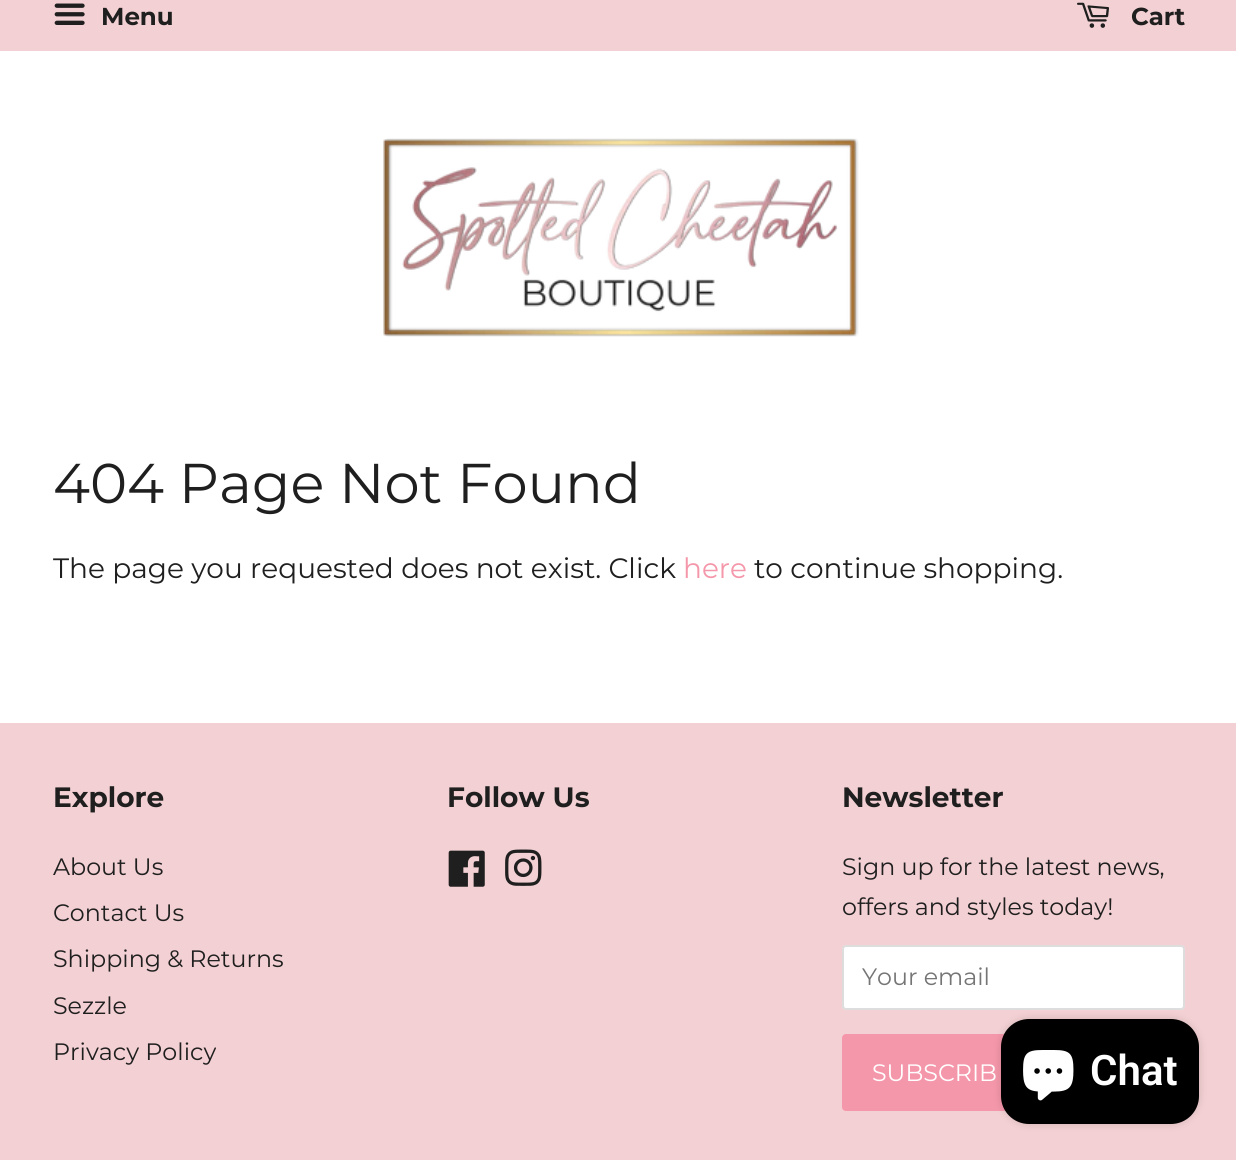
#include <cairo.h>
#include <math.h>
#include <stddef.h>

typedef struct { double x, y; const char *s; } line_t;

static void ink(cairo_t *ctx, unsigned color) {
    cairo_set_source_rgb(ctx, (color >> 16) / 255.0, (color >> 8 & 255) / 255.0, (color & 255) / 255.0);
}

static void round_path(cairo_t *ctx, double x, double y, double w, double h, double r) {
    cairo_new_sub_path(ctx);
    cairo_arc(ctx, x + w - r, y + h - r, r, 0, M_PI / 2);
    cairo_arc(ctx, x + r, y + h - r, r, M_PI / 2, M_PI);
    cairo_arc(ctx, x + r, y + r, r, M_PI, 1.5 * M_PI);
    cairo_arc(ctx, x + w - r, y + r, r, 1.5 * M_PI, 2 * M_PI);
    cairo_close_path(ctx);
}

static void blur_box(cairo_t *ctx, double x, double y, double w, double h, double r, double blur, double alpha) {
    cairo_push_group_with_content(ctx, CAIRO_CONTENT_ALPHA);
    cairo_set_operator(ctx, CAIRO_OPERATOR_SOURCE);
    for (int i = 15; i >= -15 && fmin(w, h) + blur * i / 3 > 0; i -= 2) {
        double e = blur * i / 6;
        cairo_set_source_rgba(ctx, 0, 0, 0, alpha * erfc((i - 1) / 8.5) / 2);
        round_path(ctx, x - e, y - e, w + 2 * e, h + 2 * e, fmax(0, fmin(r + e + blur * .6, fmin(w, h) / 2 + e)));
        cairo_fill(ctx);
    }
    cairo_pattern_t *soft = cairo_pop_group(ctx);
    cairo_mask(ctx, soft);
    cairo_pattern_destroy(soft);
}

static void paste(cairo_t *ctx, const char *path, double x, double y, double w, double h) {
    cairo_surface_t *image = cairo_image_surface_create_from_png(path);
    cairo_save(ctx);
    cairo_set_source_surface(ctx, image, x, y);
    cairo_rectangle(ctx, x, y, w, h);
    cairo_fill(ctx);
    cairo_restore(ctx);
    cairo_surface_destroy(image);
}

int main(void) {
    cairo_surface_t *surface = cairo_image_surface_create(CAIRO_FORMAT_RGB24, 1236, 1160);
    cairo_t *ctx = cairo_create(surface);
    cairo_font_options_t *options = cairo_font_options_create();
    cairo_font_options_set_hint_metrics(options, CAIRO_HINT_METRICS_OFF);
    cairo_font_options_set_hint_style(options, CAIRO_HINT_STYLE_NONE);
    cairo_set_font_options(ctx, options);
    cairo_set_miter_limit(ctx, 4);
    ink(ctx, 0xFFFFFF);
    cairo_paint(ctx);
    ink(ctx, 0xF3D0D3);
    cairo_rectangle(ctx, 0, 0, 1236, 51);
    cairo_fill(ctx);
    paste(ctx, "media/1.png", 54, 3, 31, 22);
    cairo_select_font_face(ctx, "Montserrat", CAIRO_FONT_SLANT_NORMAL, CAIRO_FONT_WEIGHT_BOLD);
    cairo_set_font_size(ctx, 24.5);
    ink(ctx, 0x1F1F1F);
    cairo_move_to(ctx, 101, 25);
    cairo_show_text(ctx, "Menu");
    paste(ctx, "media/2.png", 1077, 2, 32, 26);
    cairo_move_to(ctx, 1131, 25);
    cairo_show_text(ctx, "Cart");
    paste(ctx, "media/3.png", 383, 138, 476, 199);
    cairo_select_font_face(ctx, "Montserrat", CAIRO_FONT_SLANT_NORMAL, CAIRO_FONT_WEIGHT_NORMAL);
    cairo_set_font_size(ctx, 56);
    cairo_move_to(ctx, 53, 503);
    cairo_show_text(ctx, "404 Page Not Found");
    cairo_set_font_size(ctx, 28);
    cairo_move_to(ctx, 53, 578);
    cairo_show_text(ctx, "The page you requested does not exist. Click");
    ink(ctx, 0xF597AA);
    cairo_move_to(ctx, 683, 578);
    cairo_show_text(ctx, "here");
    ink(ctx, 0x1F1F1F);
    cairo_move_to(ctx, 754, 578);
    cairo_show_text(ctx, "to continue shopping.");
    ink(ctx, 0xF3D0D3);
    cairo_rectangle(ctx, 0, 723, 1236, 437);
    cairo_fill(ctx);
    cairo_select_font_face(ctx, "Montserrat", CAIRO_FONT_SLANT_NORMAL, CAIRO_FONT_WEIGHT_BOLD);
    ink(ctx, 0x1F1F1F);
    cairo_move_to(ctx, 53, 807);
    cairo_show_text(ctx, "Explore");
    cairo_select_font_face(ctx, "Montserrat", CAIRO_FONT_SLANT_NORMAL, CAIRO_FONT_WEIGHT_NORMAL);
    cairo_set_font_size(ctx, 23.75);
    {
        static const line_t items[] = {
            {53, 875, "About Us"},
            {53, 921, "Contact Us"},
            {53, 967, "Shipping & Returns"},
            {53, 1014, "Sezzle"},
            {53, 1060, "Privacy Policy"},
        };
        for (size_t i = 0; i < sizeof items / sizeof *items; i++) {
            cairo_move_to(ctx, items[i].x, items[i].y);
            cairo_show_text(ctx, items[i].s);
        }
    }
    cairo_select_font_face(ctx, "Montserrat", CAIRO_FONT_SLANT_NORMAL, CAIRO_FONT_WEIGHT_BOLD);
    cairo_set_font_size(ctx, 28);
    cairo_move_to(ctx, 447, 807);
    cairo_show_text(ctx, "Follow Us");
    paste(ctx, "media/4.png", 448, 850, 37, 37);
    paste(ctx, "media/5.png", 505, 849, 37, 37);
    cairo_move_to(ctx, 842, 807);
    cairo_show_text(ctx, "Newsletter");
    cairo_select_font_face(ctx, "Montserrat", CAIRO_FONT_SLANT_NORMAL, CAIRO_FONT_WEIGHT_NORMAL);
    cairo_set_font_size(ctx, 23.75);
    cairo_move_to(ctx, 842, 875);
    cairo_show_text(ctx, "Sign up for the latest news,");
    cairo_move_to(ctx, 842, 915);
    cairo_show_text(ctx, "offers and styles today!");
    ink(ctx, 0xFFFFFF);
    round_path(ctx, 842, 945, 343, 65, 4);
    cairo_fill(ctx);
    round_path(ctx, 843, 946, 341, 63, 3);
    cairo_set_source_rgba(ctx, 0.122, 0.122, 0.122, 0.15);
    cairo_stroke(ctx);
    ink(ctx, 0x757575);
    cairo_move_to(ctx, 862, 985);
    cairo_show_text(ctx, "Your email");
    ink(ctx, 0xF597AA);
    round_path(ctx, 842, 1034, 201, 77, 4);
    cairo_fill(ctx);
    ink(ctx, 0xFFFFFF);
    cairo_move_to(ctx, 872, 1081);
    cairo_show_text(ctx, "SUBSCRIB");
    ink(ctx, 0x000000);
    blur_box(ctx, 1001, 1019, 198, 105, 28, 4.5, 0.15);
    ink(ctx, 0x000000);
    round_path(ctx, 1001, 1019, 198, 105, 28);
    cairo_fill(ctx);
    paste(ctx, "media/6.png", 1023, 1050, 51, 51);
    cairo_select_font_face(ctx, "Roboto SemiBold", CAIRO_FONT_SLANT_NORMAL, CAIRO_FONT_WEIGHT_NORMAL);
    cairo_set_font_size(ctx, 42);
    ink(ctx, 0xFFFFFF);
    cairo_move_to(ctx, 1090, 1085);
    cairo_show_text(ctx, "Chat");
    cairo_surface_write_to_png(surface, "image.png");
    cairo_font_options_destroy(options);
    cairo_destroy(ctx);
    cairo_surface_destroy(surface);
    return 0;
}
